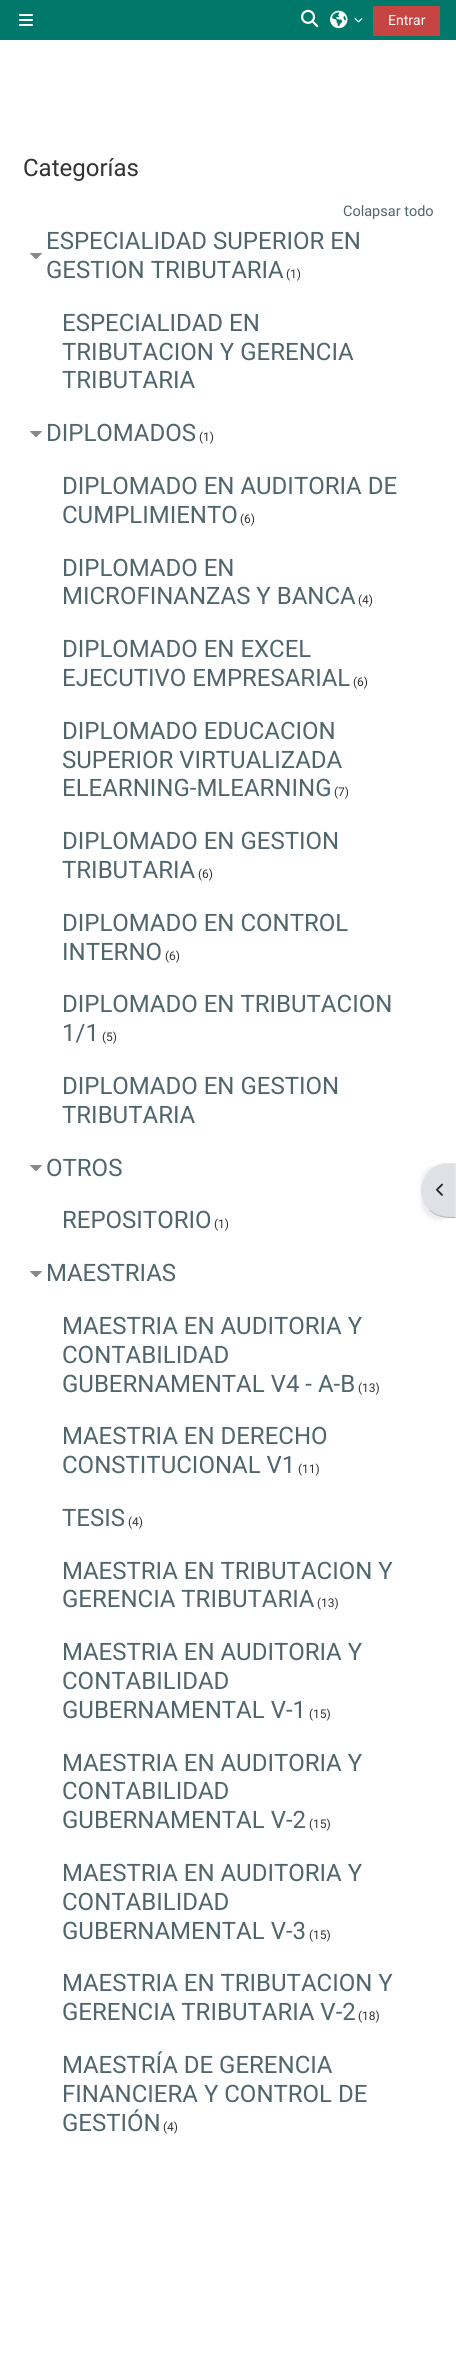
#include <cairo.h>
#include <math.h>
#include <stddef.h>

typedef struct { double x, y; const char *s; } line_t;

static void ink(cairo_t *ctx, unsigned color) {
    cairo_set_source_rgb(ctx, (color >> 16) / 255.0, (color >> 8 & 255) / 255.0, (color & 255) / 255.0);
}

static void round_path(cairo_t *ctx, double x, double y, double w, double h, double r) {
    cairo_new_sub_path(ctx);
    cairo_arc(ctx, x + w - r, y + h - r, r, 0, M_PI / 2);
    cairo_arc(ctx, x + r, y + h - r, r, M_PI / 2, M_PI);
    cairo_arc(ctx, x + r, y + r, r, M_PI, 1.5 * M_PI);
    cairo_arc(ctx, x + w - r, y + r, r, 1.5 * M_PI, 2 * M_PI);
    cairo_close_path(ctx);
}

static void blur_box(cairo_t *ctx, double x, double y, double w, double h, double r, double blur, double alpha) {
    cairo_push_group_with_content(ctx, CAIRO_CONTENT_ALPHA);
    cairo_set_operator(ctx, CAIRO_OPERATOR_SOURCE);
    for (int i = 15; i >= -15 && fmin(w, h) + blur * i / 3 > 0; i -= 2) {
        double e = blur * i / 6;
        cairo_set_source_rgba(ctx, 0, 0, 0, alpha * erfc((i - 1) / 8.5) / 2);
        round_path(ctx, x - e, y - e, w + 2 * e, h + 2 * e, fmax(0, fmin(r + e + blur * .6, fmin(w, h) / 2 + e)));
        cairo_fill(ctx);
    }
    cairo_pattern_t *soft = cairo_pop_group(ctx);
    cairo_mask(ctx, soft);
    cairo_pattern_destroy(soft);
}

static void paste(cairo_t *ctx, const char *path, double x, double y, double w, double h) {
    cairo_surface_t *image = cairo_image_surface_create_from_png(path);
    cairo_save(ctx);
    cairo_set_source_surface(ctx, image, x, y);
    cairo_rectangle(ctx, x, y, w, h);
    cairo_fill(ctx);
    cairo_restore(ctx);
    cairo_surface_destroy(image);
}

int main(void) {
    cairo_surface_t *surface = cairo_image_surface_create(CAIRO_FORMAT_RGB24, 456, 2380);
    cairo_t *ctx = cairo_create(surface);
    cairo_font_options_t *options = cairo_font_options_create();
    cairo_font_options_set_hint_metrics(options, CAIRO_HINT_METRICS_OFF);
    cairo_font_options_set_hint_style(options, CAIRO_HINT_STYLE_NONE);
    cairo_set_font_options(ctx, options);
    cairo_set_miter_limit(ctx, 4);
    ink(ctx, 0xFFFFFF);
    cairo_paint(ctx);
    ink(ctx, 0x00796B);
    cairo_rectangle(ctx, 0, 0, 456, 40);
    cairo_fill(ctx);
    paste(ctx, "media/1.png", 19, 14, 14, 12);
    paste(ctx, "media/2.png", 301, 9, 18, 19);
    paste(ctx, "media/3.png", 330, 10, 18, 19);
    paste(ctx, "media/4.png", 354, 18, 9, 5);
    ink(ctx, 0xC64543);
    cairo_rectangle(ctx, 373, 6, 67, 30);
    cairo_fill(ctx);
    cairo_select_font_face(ctx, "Roboto", CAIRO_FONT_SLANT_NORMAL, CAIRO_FONT_WEIGHT_NORMAL);
    cairo_set_font_size(ctx, 14);
    ink(ctx, 0xFFFFFF);
    cairo_move_to(ctx, 388, 25);
    cairo_show_text(ctx, "Entrar");
    cairo_set_font_size(ctx, 24);
    ink(ctx, 0x333333);
    cairo_move_to(ctx, 23, 176);
    cairo_show_text(ctx, "Categorías");
    cairo_set_font_size(ctx, 14.5);
    ink(ctx, 0x51666C);
    cairo_move_to(ctx, 343, 216);
    cairo_show_text(ctx, "Colapsar todo");
    paste(ctx, "media/5.png", 30, 253, 12, 6);
    cairo_set_font_size(ctx, 24);
    cairo_move_to(ctx, 46, 249);
    cairo_show_text(ctx, "ESPECIALIDAD SUPERIOR EN");
    cairo_move_to(ctx, 46, 278);
    cairo_show_text(ctx, "GESTION TRIBUTARIA");
    cairo_set_font_size(ctx, 12);
    ink(ctx, 0x333333);
    cairo_move_to(ctx, 286, 278);
    cairo_show_text(ctx, "(1)");
    cairo_set_font_size(ctx, 24);
    ink(ctx, 0x51666C);
    {
        static const line_t items[] = {
            {62, 331, "ESPECIALIDAD EN"},
            {62, 360, "TRIBUTACION Y GERENCIA"},
            {62, 388, "TRIBUTARIA"},
        };
        for (size_t i = 0; i < sizeof items / sizeof *items; i++) {
            cairo_move_to(ctx, items[i].x, items[i].y);
            cairo_show_text(ctx, items[i].s);
        }
    }
    paste(ctx, "media/6.png", 30, 431, 12, 6);
    cairo_move_to(ctx, 46, 441);
    cairo_show_text(ctx, "DIPLOMADOS");
    cairo_set_font_size(ctx, 12);
    ink(ctx, 0x333333);
    cairo_move_to(ctx, 199, 441);
    cairo_show_text(ctx, "(1)");
    cairo_set_font_size(ctx, 24);
    ink(ctx, 0x51666C);
    cairo_move_to(ctx, 62, 494);
    cairo_show_text(ctx, "DIPLOMADO EN AUDITORIA DE");
    cairo_move_to(ctx, 62, 523);
    cairo_show_text(ctx, "CUMPLIMIENTO");
    cairo_set_font_size(ctx, 12);
    ink(ctx, 0x333333);
    cairo_move_to(ctx, 240, 523);
    cairo_show_text(ctx, "(6)");
    cairo_set_font_size(ctx, 24);
    ink(ctx, 0x51666C);
    cairo_move_to(ctx, 62, 576);
    cairo_show_text(ctx, "DIPLOMADO EN");
    cairo_move_to(ctx, 62, 604);
    cairo_show_text(ctx, "MICROFINANZAS Y BANCA");
    cairo_set_font_size(ctx, 12);
    ink(ctx, 0x333333);
    cairo_move_to(ctx, 358, 604);
    cairo_show_text(ctx, "(4)");
    cairo_set_font_size(ctx, 24);
    ink(ctx, 0x51666C);
    cairo_move_to(ctx, 62, 657);
    cairo_show_text(ctx, "DIPLOMADO EN EXCEL");
    cairo_move_to(ctx, 62, 686);
    cairo_show_text(ctx, "EJECUTIVO EMPRESARIAL");
    cairo_set_font_size(ctx, 12);
    ink(ctx, 0x333333);
    cairo_move_to(ctx, 353, 686);
    cairo_show_text(ctx, "(6)");
    cairo_set_font_size(ctx, 24);
    ink(ctx, 0x51666C);
    {
        static const line_t items[] = {
            {62, 739, "DIPLOMADO EDUCACION"},
            {62, 768, "SUPERIOR VIRTUALIZADA"},
            {62, 796, "ELEARNING-MLEARNING"},
        };
        for (size_t i = 0; i < sizeof items / sizeof *items; i++) {
            cairo_move_to(ctx, items[i].x, items[i].y);
            cairo_show_text(ctx, items[i].s);
        }
    }
    cairo_set_font_size(ctx, 12);
    ink(ctx, 0x333333);
    cairo_move_to(ctx, 334, 796);
    cairo_show_text(ctx, "(7)");
    cairo_set_font_size(ctx, 24);
    ink(ctx, 0x51666C);
    cairo_move_to(ctx, 62, 849);
    cairo_show_text(ctx, "DIPLOMADO EN GESTION");
    cairo_move_to(ctx, 62, 878);
    cairo_show_text(ctx, "TRIBUTARIA");
    cairo_set_font_size(ctx, 12);
    ink(ctx, 0x333333);
    cairo_move_to(ctx, 198, 878);
    cairo_show_text(ctx, "(6)");
    cairo_set_font_size(ctx, 24);
    ink(ctx, 0x51666C);
    cairo_move_to(ctx, 62, 931);
    cairo_show_text(ctx, "DIPLOMADO EN CONTROL");
    cairo_move_to(ctx, 62, 960);
    cairo_show_text(ctx, "INTERNO");
    cairo_set_font_size(ctx, 12);
    ink(ctx, 0x333333);
    cairo_move_to(ctx, 165, 960);
    cairo_show_text(ctx, "(6)");
    cairo_set_font_size(ctx, 24);
    ink(ctx, 0x51666C);
    cairo_move_to(ctx, 62, 1012);
    cairo_show_text(ctx, "DIPLOMADO EN TRIBUTACION");
    cairo_move_to(ctx, 62, 1041);
    cairo_show_text(ctx, "1/1");
    cairo_set_font_size(ctx, 12);
    ink(ctx, 0x333333);
    cairo_move_to(ctx, 102, 1041);
    cairo_show_text(ctx, "(5)");
    cairo_set_font_size(ctx, 24);
    ink(ctx, 0x51666C);
    cairo_move_to(ctx, 62, 1094);
    cairo_show_text(ctx, "DIPLOMADO EN GESTION");
    cairo_move_to(ctx, 62, 1123);
    cairo_show_text(ctx, "TRIBUTARIA");
    paste(ctx, "media/6.png", 30, 1165, 12, 6);
    cairo_move_to(ctx, 46, 1176);
    cairo_show_text(ctx, "OTROS");
    cairo_move_to(ctx, 62, 1228);
    cairo_show_text(ctx, "REPOSITORIO");
    cairo_set_font_size(ctx, 12);
    ink(ctx, 0x333333);
    cairo_move_to(ctx, 214, 1228);
    cairo_show_text(ctx, "(1)");
    paste(ctx, "media/6.png", 30, 1271, 12, 6);
    cairo_set_font_size(ctx, 24);
    ink(ctx, 0x51666C);
    {
        static const line_t items[] = {
            {46, 1281, "MAESTRIAS"},
            {62, 1334, "MAESTRIA EN AUDITORIA Y"},
            {62, 1363, "CONTABILIDAD"},
            {62, 1392, "GUBERNAMENTAL V4 - A-B"},
        };
        for (size_t i = 0; i < sizeof items / sizeof *items; i++) {
            cairo_move_to(ctx, items[i].x, items[i].y);
            cairo_show_text(ctx, items[i].s);
        }
    }
    cairo_set_font_size(ctx, 12);
    ink(ctx, 0x333333);
    cairo_move_to(ctx, 358, 1392);
    cairo_show_text(ctx, "(13)");
    cairo_set_font_size(ctx, 24);
    ink(ctx, 0x51666C);
    cairo_move_to(ctx, 62, 1444);
    cairo_show_text(ctx, "MAESTRIA EN DERECHO");
    cairo_move_to(ctx, 62, 1473);
    cairo_show_text(ctx, "CONSTITUCIONAL V1");
    cairo_set_font_size(ctx, 12);
    ink(ctx, 0x333333);
    cairo_move_to(ctx, 298, 1473);
    cairo_show_text(ctx, "(11)");
    cairo_set_font_size(ctx, 24);
    ink(ctx, 0x51666C);
    cairo_move_to(ctx, 62, 1526);
    cairo_show_text(ctx, "TESIS");
    cairo_set_font_size(ctx, 12);
    ink(ctx, 0x333333);
    cairo_move_to(ctx, 128, 1526);
    cairo_show_text(ctx, "(4)");
    cairo_set_font_size(ctx, 24);
    ink(ctx, 0x51666C);
    cairo_move_to(ctx, 62, 1579);
    cairo_show_text(ctx, "MAESTRIA EN TRIBUTACION Y");
    cairo_move_to(ctx, 62, 1607);
    cairo_show_text(ctx, "GERENCIA TRIBUTARIA");
    cairo_set_font_size(ctx, 12);
    ink(ctx, 0x333333);
    cairo_move_to(ctx, 317, 1607);
    cairo_show_text(ctx, "(13)");
    cairo_set_font_size(ctx, 24);
    ink(ctx, 0x51666C);
    {
        static const line_t items[] = {
            {62, 1660, "MAESTRIA EN AUDITORIA Y"},
            {62, 1689, "CONTABILIDAD"},
            {62, 1718, "GUBERNAMENTAL V-1"},
        };
        for (size_t i = 0; i < sizeof items / sizeof *items; i++) {
            cairo_move_to(ctx, items[i].x, items[i].y);
            cairo_show_text(ctx, items[i].s);
        }
    }
    cairo_set_font_size(ctx, 12);
    ink(ctx, 0x333333);
    cairo_move_to(ctx, 309, 1718);
    cairo_show_text(ctx, "(15)");
    cairo_set_font_size(ctx, 24);
    ink(ctx, 0x51666C);
    {
        static const line_t items[] = {
            {62, 1771, "MAESTRIA EN AUDITORIA Y"},
            {62, 1799, "CONTABILIDAD"},
            {62, 1828, "GUBERNAMENTAL V-2"},
        };
        for (size_t i = 0; i < sizeof items / sizeof *items; i++) {
            cairo_move_to(ctx, items[i].x, items[i].y);
            cairo_show_text(ctx, items[i].s);
        }
    }
    cairo_set_font_size(ctx, 12);
    ink(ctx, 0x333333);
    cairo_move_to(ctx, 309, 1828);
    cairo_show_text(ctx, "(15)");
    cairo_set_font_size(ctx, 24);
    ink(ctx, 0x51666C);
    {
        static const line_t items[] = {
            {62, 1881, "MAESTRIA EN AUDITORIA Y"},
            {62, 1910, "CONTABILIDAD"},
            {62, 1939, "GUBERNAMENTAL V-3"},
        };
        for (size_t i = 0; i < sizeof items / sizeof *items; i++) {
            cairo_move_to(ctx, items[i].x, items[i].y);
            cairo_show_text(ctx, items[i].s);
        }
    }
    cairo_set_font_size(ctx, 12);
    ink(ctx, 0x333333);
    cairo_move_to(ctx, 309, 1939);
    cairo_show_text(ctx, "(15)");
    cairo_set_font_size(ctx, 24);
    ink(ctx, 0x51666C);
    cairo_move_to(ctx, 62, 1991);
    cairo_show_text(ctx, "MAESTRIA EN TRIBUTACION Y");
    cairo_move_to(ctx, 62, 2020);
    cairo_show_text(ctx, "GERENCIA TRIBUTARIA V-2");
    cairo_set_font_size(ctx, 12);
    ink(ctx, 0x333333);
    cairo_move_to(ctx, 358, 2020);
    cairo_show_text(ctx, "(18)");
    cairo_set_font_size(ctx, 24);
    ink(ctx, 0x51666C);
    {
        static const line_t items[] = {
            {62, 2073, "MAESTRÍA DE GERENCIA"},
            {62, 2102, "FINANCIERA Y CONTROL DE"},
            {62, 2131, "GESTIÓN"},
        };
        for (size_t i = 0; i < sizeof items / sizeof *items; i++) {
            cairo_move_to(ctx, items[i].x, items[i].y);
            cairo_show_text(ctx, items[i].s);
        }
    }
    cairo_set_font_size(ctx, 12);
    ink(ctx, 0x333333);
    cairo_move_to(ctx, 163, 2131);
    cairo_show_text(ctx, "(4)");
    ink(ctx, 0x000000);
    blur_box(ctx, 421, 1165, 35, 55, 28, 2, 0.07);
    ink(ctx, 0xDEE2E6);
    cairo_new_path(ctx);
    cairo_move_to(ctx, 448.5, 1163);
    cairo_line_to(ctx, 456, 1163);
    cairo_line_to(ctx, 456, 1218);
    cairo_line_to(ctx, 448.5, 1218);
    cairo_curve_to(ctx, 433.5, 1218, 421, 1205.5, 421, 1190.5);
    cairo_curve_to(ctx, 421, 1175.5, 433.5, 1163, 448.5, 1163);
    cairo_close_path(ctx);
    cairo_fill(ctx);
    ink(ctx, 0xE6E6E6);
    cairo_new_path(ctx);
    cairo_move_to(ctx, 448, 1163);
    cairo_curve_to(ctx, 440, 1163, 433.5, 1166, 429, 1171);
    cairo_line_to(ctx, 429.5, 1171.5);
    cairo_curve_to(ctx, 437, 1164, 445, 1164, 455, 1164);
    cairo_line_to(ctx, 456, 1163);
    cairo_close_path(ctx);
    cairo_fill(ctx);
    cairo_new_path(ctx);
    cairo_move_to(ctx, 456, 1163);
    cairo_line_to(ctx, 455, 1164);
    cairo_line_to(ctx, 455, 1217);
    cairo_line_to(ctx, 456, 1218);
    cairo_close_path(ctx);
    cairo_fill(ctx);
    ink(ctx, 0xB3B3B3);
    cairo_new_path(ctx);
    cairo_move_to(ctx, 456, 1218);
    cairo_line_to(ctx, 455, 1217);
    cairo_curve_to(ctx, 445.5, 1217, 436.5, 1216.5, 429.5, 1209.5);
    cairo_line_to(ctx, 429, 1210);
    cairo_curve_to(ctx, 436.5, 1217.5, 445.5, 1218, 456, 1218);
    cairo_close_path(ctx);
    cairo_fill(ctx);
    ink(ctx, 0xE6E6E6);
    cairo_new_path(ctx);
    cairo_move_to(ctx, 429, 1171);
    cairo_curve_to(ctx, 419, 1181, 418, 1199, 429, 1210);
    cairo_line_to(ctx, 429.5, 1209.5);
    cairo_curve_to(ctx, 419, 1199, 420, 1181.5, 429.5, 1171.5);
    cairo_close_path(ctx);
    cairo_fill(ctx);
    paste(ctx, "media/7.png", 436, 1183, 7, 13);
    cairo_surface_write_to_png(surface, "image.png");
    cairo_font_options_destroy(options);
    cairo_destroy(ctx);
    cairo_surface_destroy(surface);
    return 0;
}
